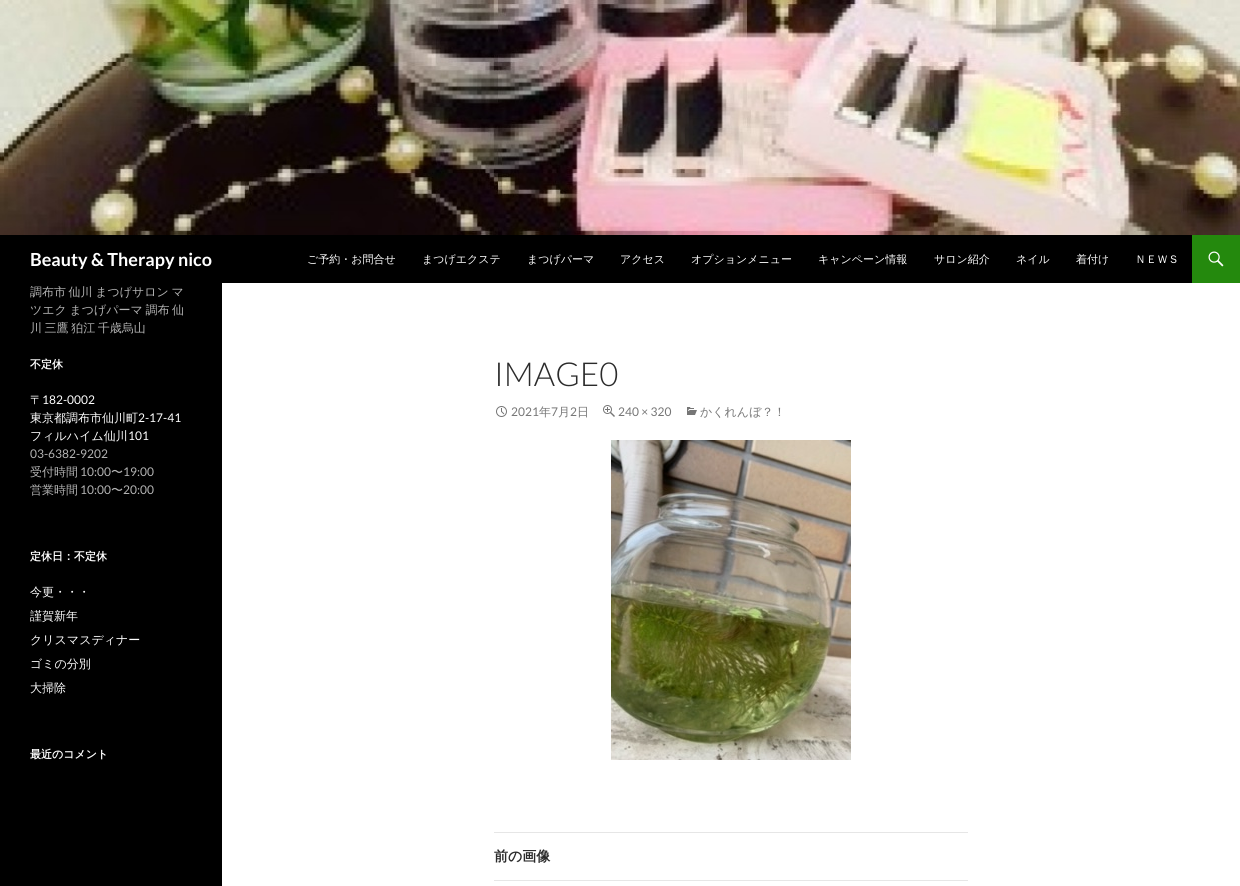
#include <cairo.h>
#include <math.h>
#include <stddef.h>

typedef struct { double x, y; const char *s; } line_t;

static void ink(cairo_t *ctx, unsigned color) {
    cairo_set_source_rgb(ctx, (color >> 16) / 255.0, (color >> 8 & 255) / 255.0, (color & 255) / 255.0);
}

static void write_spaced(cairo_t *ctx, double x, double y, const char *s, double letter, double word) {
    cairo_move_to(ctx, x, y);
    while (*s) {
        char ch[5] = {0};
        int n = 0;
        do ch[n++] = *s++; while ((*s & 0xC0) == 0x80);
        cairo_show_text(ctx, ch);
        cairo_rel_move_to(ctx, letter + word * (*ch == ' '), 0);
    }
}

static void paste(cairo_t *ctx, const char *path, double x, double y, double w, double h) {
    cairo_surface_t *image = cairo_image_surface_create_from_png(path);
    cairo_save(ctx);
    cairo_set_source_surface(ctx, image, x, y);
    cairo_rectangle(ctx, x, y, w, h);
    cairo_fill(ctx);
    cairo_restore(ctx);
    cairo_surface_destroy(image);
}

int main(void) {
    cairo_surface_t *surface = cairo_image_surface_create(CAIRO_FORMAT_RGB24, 1240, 886);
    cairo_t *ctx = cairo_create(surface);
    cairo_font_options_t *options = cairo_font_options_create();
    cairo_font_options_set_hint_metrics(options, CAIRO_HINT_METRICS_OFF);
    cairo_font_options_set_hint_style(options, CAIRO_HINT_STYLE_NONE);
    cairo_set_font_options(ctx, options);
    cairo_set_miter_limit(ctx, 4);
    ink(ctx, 0xFFFFFF);
    cairo_paint(ctx);
    paste(ctx, "media/1.png", 0, 0, 1240, 235);
    ink(ctx, 0x000000);
    cairo_rectangle(ctx, 0, 235, 1192, 48);
    cairo_fill(ctx);
    cairo_select_font_face(ctx, "Lato", CAIRO_FONT_SLANT_NORMAL, CAIRO_FONT_WEIGHT_BOLD);
    cairo_set_font_size(ctx, 18);
    ink(ctx, 0xFFFFFF);
    cairo_move_to(ctx, 30, 266);
    cairo_show_text(ctx, "Beauty & Therapy nico");
    cairo_select_font_face(ctx, "WenQuanYi Zen Hei Medium", CAIRO_FONT_SLANT_NORMAL, CAIRO_FONT_WEIGHT_NORMAL);
    cairo_set_font_size(ctx, 11);
    {
        static const line_t items[] = {
            {307, 263, "ご予約・お問合せ"},
            {422, 263, "まつげエクステ"},
            {527, 263, "まつげパーマ"},
            {620, 263, "アクセス"},
            {691, 263, "オプションメニュー"},
            {818, 263, "キャンペーン情報"},
            {934, 263, "サロン紹介"},
            {1016, 263, "ネイル"},
            {1076, 263, "着付け"},
            {1135, 263, "ＮＥＷＳ"},
        };
        for (size_t i = 0; i < sizeof items / sizeof *items; i++) {
            cairo_move_to(ctx, items[i].x, items[i].y);
            cairo_show_text(ctx, items[i].s);
        }
    }
    ink(ctx, 0x24890D);
    cairo_rectangle(ctx, 1192, 235, 48, 48);
    cairo_fill(ctx);
    paste(ctx, "media/2.png", 1208, 251, 16, 16);
    ink(ctx, 0x000000);
    cairo_rectangle(ctx, 0, 283, 222, 603);
    cairo_fill(ctx);
    cairo_set_font_size(ctx, 12);
    ink(ctx, 0xB3B3B3);
    {
        static const line_t items[] = {
            {30, 296, "調布市 仙川 まつげサロン マ"},
            {30, 314, "ツエク まつげパーマ 調布 仙"},
            {30, 332, "川 三鷹 狛江 千歳烏山"},
        };
        for (size_t i = 0; i < sizeof items / sizeof *items; i++) {
            write_spaced(ctx, items[i].x, items[i].y, items[i].s, 0, -1);
        }
    }
    cairo_select_font_face(ctx, "WenQuanYi Zen Hei", CAIRO_FONT_SLANT_NORMAL, CAIRO_FONT_WEIGHT_BOLD);
    cairo_set_font_size(ctx, 11);
    ink(ctx, 0xFFFFFF);
    cairo_move_to(ctx, 30, 368);
    cairo_show_text(ctx, "不定休");
    cairo_select_font_face(ctx, "WenQuanYi Zen Hei Medium", CAIRO_FONT_SLANT_NORMAL, CAIRO_FONT_WEIGHT_NORMAL);
    cairo_set_font_size(ctx, 12);
    cairo_move_to(ctx, 30, 404);
    cairo_show_text(ctx, "〒");
    cairo_select_font_face(ctx, "Lato", CAIRO_FONT_SLANT_NORMAL, CAIRO_FONT_WEIGHT_NORMAL);
    cairo_move_to(ctx, 42, 404);
    cairo_show_text(ctx, "182-0002");
    cairo_select_font_face(ctx, "WenQuanYi Zen Hei Medium", CAIRO_FONT_SLANT_NORMAL, CAIRO_FONT_WEIGHT_NORMAL);
    cairo_move_to(ctx, 30, 422);
    cairo_show_text(ctx, "東京都調布市仙川町");
    cairo_select_font_face(ctx, "Lato", CAIRO_FONT_SLANT_NORMAL, CAIRO_FONT_WEIGHT_NORMAL);
    cairo_move_to(ctx, 138, 422);
    cairo_show_text(ctx, "2-17-41");
    cairo_select_font_face(ctx, "WenQuanYi Zen Hei Medium", CAIRO_FONT_SLANT_NORMAL, CAIRO_FONT_WEIGHT_NORMAL);
    cairo_move_to(ctx, 30, 440);
    cairo_show_text(ctx, "フィルハイム仙川");
    cairo_select_font_face(ctx, "Lato", CAIRO_FONT_SLANT_NORMAL, CAIRO_FONT_WEIGHT_NORMAL);
    cairo_move_to(ctx, 128, 440);
    cairo_show_text(ctx, "101");
    ink(ctx, 0xB3B3B3);
    cairo_move_to(ctx, 30, 458);
    cairo_show_text(ctx, "03-6382-9202");
    cairo_select_font_face(ctx, "WenQuanYi Zen Hei Medium", CAIRO_FONT_SLANT_NORMAL, CAIRO_FONT_WEIGHT_NORMAL);
    cairo_move_to(ctx, 30, 476);
    cairo_show_text(ctx, "受付時間");
    cairo_select_font_face(ctx, "Lato", CAIRO_FONT_SLANT_NORMAL, CAIRO_FONT_WEIGHT_NORMAL);
    cairo_move_to(ctx, 80, 476);
    cairo_show_text(ctx, "10:00");
    cairo_select_font_face(ctx, "WenQuanYi Zen Hei Medium", CAIRO_FONT_SLANT_NORMAL, CAIRO_FONT_WEIGHT_NORMAL);
    cairo_move_to(ctx, 111, 476);
    cairo_show_text(ctx, "〜");
    cairo_select_font_face(ctx, "Lato", CAIRO_FONT_SLANT_NORMAL, CAIRO_FONT_WEIGHT_NORMAL);
    cairo_move_to(ctx, 123, 476);
    cairo_show_text(ctx, "19:00");
    cairo_select_font_face(ctx, "WenQuanYi Zen Hei Medium", CAIRO_FONT_SLANT_NORMAL, CAIRO_FONT_WEIGHT_NORMAL);
    cairo_move_to(ctx, 30, 494);
    cairo_show_text(ctx, "営業時間");
    cairo_select_font_face(ctx, "Lato", CAIRO_FONT_SLANT_NORMAL, CAIRO_FONT_WEIGHT_NORMAL);
    cairo_move_to(ctx, 80, 494);
    cairo_show_text(ctx, "10:00");
    cairo_select_font_face(ctx, "WenQuanYi Zen Hei Medium", CAIRO_FONT_SLANT_NORMAL, CAIRO_FONT_WEIGHT_NORMAL);
    cairo_move_to(ctx, 111, 494);
    cairo_show_text(ctx, "〜");
    cairo_select_font_face(ctx, "Lato", CAIRO_FONT_SLANT_NORMAL, CAIRO_FONT_WEIGHT_NORMAL);
    cairo_move_to(ctx, 123, 494);
    cairo_show_text(ctx, "20:00");
    cairo_select_font_face(ctx, "WenQuanYi Zen Hei", CAIRO_FONT_SLANT_NORMAL, CAIRO_FONT_WEIGHT_BOLD);
    cairo_set_font_size(ctx, 11);
    ink(ctx, 0xFFFFFF);
    cairo_move_to(ctx, 30, 560);
    cairo_show_text(ctx, "定休日：不定休");
    cairo_select_font_face(ctx, "WenQuanYi Zen Hei Medium", CAIRO_FONT_SLANT_NORMAL, CAIRO_FONT_WEIGHT_NORMAL);
    cairo_set_font_size(ctx, 12);
    {
        static const line_t items[] = {
            {30, 596, "今更・・・"},
            {30, 620, "謹賀新年"},
            {30, 644, "クリスマスディナー"},
            {30, 668, "ゴミの分別"},
            {30, 692, "大掃除"},
        };
        for (size_t i = 0; i < sizeof items / sizeof *items; i++) {
            cairo_move_to(ctx, items[i].x, items[i].y);
            cairo_show_text(ctx, items[i].s);
        }
    }
    cairo_select_font_face(ctx, "WenQuanYi Zen Hei", CAIRO_FONT_SLANT_NORMAL, CAIRO_FONT_WEIGHT_BOLD);
    cairo_set_font_size(ctx, 11);
    cairo_move_to(ctx, 30, 758);
    cairo_show_text(ctx, "最近のコメント");
    cairo_select_font_face(ctx, "Lato Light", CAIRO_FONT_SLANT_NORMAL, CAIRO_FONT_WEIGHT_NORMAL);
    cairo_set_font_size(ctx, 33);
    ink(ctx, 0x2B2B2B);
    cairo_move_to(ctx, 494, 386);
    cairo_show_text(ctx, "IMAGE0");
    paste(ctx, "media/3.png", 496, 406, 11, 11);
    cairo_select_font_face(ctx, "Lato", CAIRO_FONT_SLANT_NORMAL, CAIRO_FONT_WEIGHT_NORMAL);
    cairo_set_font_size(ctx, 12);
    ink(ctx, 0x767676);
    cairo_move_to(ctx, 511, 416);
    cairo_show_text(ctx, "2021");
    cairo_select_font_face(ctx, "WenQuanYi Zen Hei Medium", CAIRO_FONT_SLANT_NORMAL, CAIRO_FONT_WEIGHT_NORMAL);
    cairo_move_to(ctx, 539, 416);
    cairo_show_text(ctx, "年");
    cairo_select_font_face(ctx, "Lato", CAIRO_FONT_SLANT_NORMAL, CAIRO_FONT_WEIGHT_NORMAL);
    cairo_move_to(ctx, 551, 416);
    cairo_show_text(ctx, "7");
    cairo_select_font_face(ctx, "WenQuanYi Zen Hei Medium", CAIRO_FONT_SLANT_NORMAL, CAIRO_FONT_WEIGHT_NORMAL);
    cairo_move_to(ctx, 558, 416);
    cairo_show_text(ctx, "月");
    cairo_select_font_face(ctx, "Lato", CAIRO_FONT_SLANT_NORMAL, CAIRO_FONT_WEIGHT_NORMAL);
    cairo_move_to(ctx, 570, 416);
    cairo_show_text(ctx, "2");
    cairo_select_font_face(ctx, "WenQuanYi Zen Hei Medium", CAIRO_FONT_SLANT_NORMAL, CAIRO_FONT_WEIGHT_NORMAL);
    cairo_move_to(ctx, 577, 416);
    cairo_show_text(ctx, "日");
    paste(ctx, "media/4.png", 603, 405, 12, 12);
    cairo_select_font_face(ctx, "Lato", CAIRO_FONT_SLANT_NORMAL, CAIRO_FONT_WEIGHT_NORMAL);
    cairo_move_to(ctx, 618, 416);
    cairo_show_text(ctx, "240 × 320");
    paste(ctx, "media/5.png", 687, 407, 10, 8);
    cairo_select_font_face(ctx, "WenQuanYi Zen Hei Medium", CAIRO_FONT_SLANT_NORMAL, CAIRO_FONT_WEIGHT_NORMAL);
    cairo_move_to(ctx, 700, 416);
    cairo_show_text(ctx, "かくれんぼ？！");
    paste(ctx, "media/6.png", 611, 440, 240, 320);
    ink(ctx, 0xE6E6E6);
    cairo_rectangle(ctx, 494, 832, 474, 1);
    cairo_fill(ctx);
    cairo_rectangle(ctx, 494, 880, 474, 1);
    cairo_fill(ctx);
    cairo_select_font_face(ctx, "WenQuanYi Zen Hei", CAIRO_FONT_SLANT_NORMAL, CAIRO_FONT_WEIGHT_BOLD);
    cairo_set_font_size(ctx, 14);
    ink(ctx, 0x2B2B2B);
    cairo_move_to(ctx, 494, 861);
    cairo_show_text(ctx, "前の画像");
    cairo_surface_write_to_png(surface, "image.png");
    cairo_font_options_destroy(options);
    cairo_destroy(ctx);
    cairo_surface_destroy(surface);
    return 0;
}
